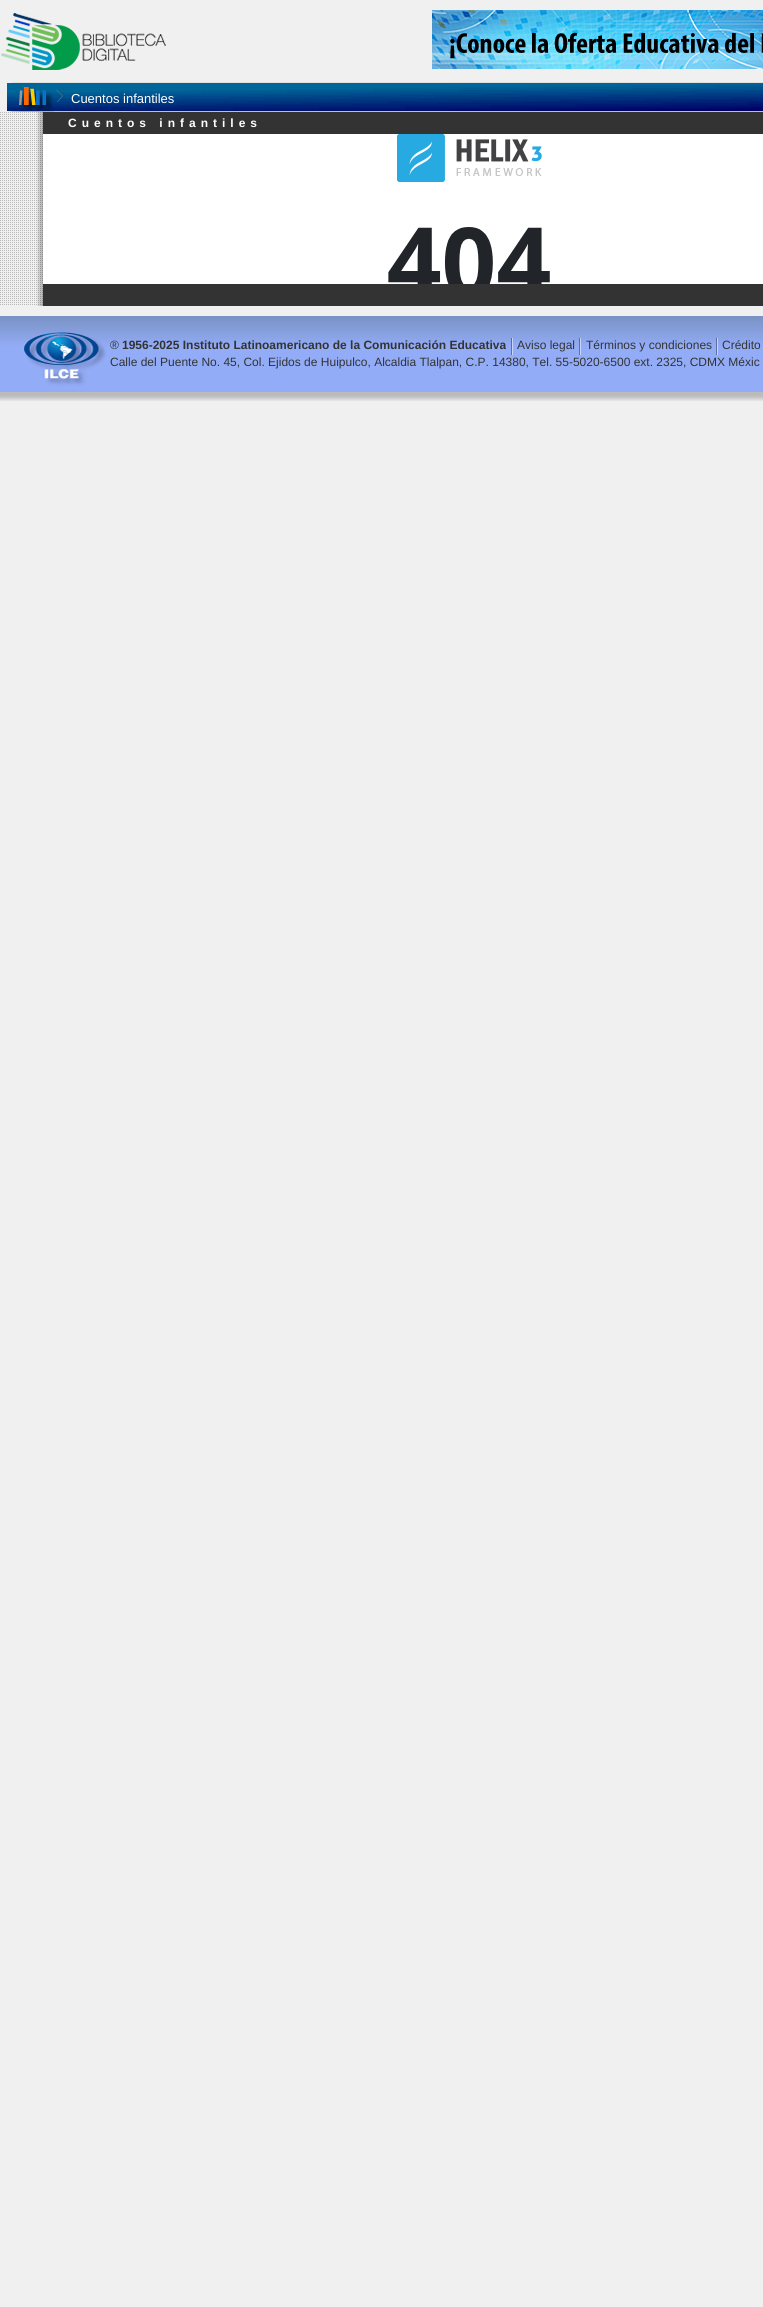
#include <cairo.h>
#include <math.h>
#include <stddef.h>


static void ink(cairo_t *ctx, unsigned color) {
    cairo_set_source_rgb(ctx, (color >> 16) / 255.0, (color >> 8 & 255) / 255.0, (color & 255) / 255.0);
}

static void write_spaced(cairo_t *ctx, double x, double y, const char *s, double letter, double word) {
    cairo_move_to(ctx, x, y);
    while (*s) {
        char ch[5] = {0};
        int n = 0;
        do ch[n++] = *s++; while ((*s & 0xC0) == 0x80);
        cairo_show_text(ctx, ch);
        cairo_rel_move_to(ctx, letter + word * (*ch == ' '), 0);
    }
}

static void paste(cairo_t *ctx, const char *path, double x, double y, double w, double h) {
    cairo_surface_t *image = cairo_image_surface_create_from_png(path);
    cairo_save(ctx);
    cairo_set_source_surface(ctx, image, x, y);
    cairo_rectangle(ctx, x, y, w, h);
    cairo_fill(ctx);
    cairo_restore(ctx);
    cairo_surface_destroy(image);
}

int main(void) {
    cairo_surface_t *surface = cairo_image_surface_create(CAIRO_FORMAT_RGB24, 763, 2307);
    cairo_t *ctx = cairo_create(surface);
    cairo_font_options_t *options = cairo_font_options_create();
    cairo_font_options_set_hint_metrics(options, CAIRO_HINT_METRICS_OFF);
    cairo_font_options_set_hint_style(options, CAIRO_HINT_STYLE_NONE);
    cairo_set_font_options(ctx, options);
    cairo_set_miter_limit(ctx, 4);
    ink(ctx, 0xF0F0F0);
    cairo_paint(ctx);
    paste(ctx, "media/1.png", 1, 13, 165, 57);
    paste(ctx, "media/2.png", 432, 10, 331, 59);
    paste(ctx, "media/3.png", 7, 82, 756, 30);
    paste(ctx, "media/4.png", 56, 89, 9, 13);
    cairo_select_font_face(ctx, "Liberation Sans", CAIRO_FONT_SLANT_NORMAL, CAIRO_FONT_WEIGHT_NORMAL);
    cairo_set_font_size(ctx, 13);
    ink(ctx, 0xFFFFFF);
    cairo_move_to(ctx, 71, 103);
    cairo_show_text(ctx, "Cuentos infantiles");
    paste(ctx, "media/5.png", 0, 112, 43, 193);
    paste(ctx, "media/6.png", 37, 112, 6, 194);
    cairo_rectangle(ctx, 43, 134, 720, 150);
    cairo_fill(ctx);
    ink(ctx, 0x333333);
    cairo_rectangle(ctx, 43, 112, 720, 22);
    cairo_fill(ctx);
    cairo_select_font_face(ctx, "Liberation Sans", CAIRO_FONT_SLANT_NORMAL, CAIRO_FONT_WEIGHT_BOLD);
    cairo_set_font_size(ctx, 12);
    ink(ctx, 0xFFFFFF);
    write_spaced(ctx, 68, 127, "Cuentos infantiles", 5, 0);
    paste(ctx, "media/7.png", 388, 134, 162, 150);
    ink(ctx, 0x333333);
    cairo_rectangle(ctx, 43, 284, 720, 22);
    cairo_fill(ctx);
    paste(ctx, "media/8.png", 0, 316, 763, 85);
    cairo_select_font_face(ctx, "Liberation Sans", CAIRO_FONT_SLANT_NORMAL, CAIRO_FONT_WEIGHT_NORMAL);
    cairo_move_to(ctx, 110, 349);
    cairo_show_text(ctx, "®");
    cairo_select_font_face(ctx, "Liberation Sans", CAIRO_FONT_SLANT_NORMAL, CAIRO_FONT_WEIGHT_BOLD);
    cairo_move_to(ctx, 122, 349);
    cairo_show_text(ctx, "1956-2025 Instituto Latinoamericano de la Comunicación Educativa");
    paste(ctx, "media/9.png", 511, 338, 2, 17);
    cairo_select_font_face(ctx, "Liberation Sans", CAIRO_FONT_SLANT_NORMAL, CAIRO_FONT_WEIGHT_NORMAL);
    cairo_move_to(ctx, 517, 349);
    cairo_show_text(ctx, "Aviso legal");
    paste(ctx, "media/9.png", 579, 338, 2, 17);
    cairo_move_to(ctx, 586, 349);
    cairo_show_text(ctx, "Términos y condiciones");
    paste(ctx, "media/9.png", 716, 338, 2, 17);
    cairo_move_to(ctx, 722, 349);
    cairo_show_text(ctx, "Crédito");
    cairo_move_to(ctx, 110, 366);
    cairo_show_text(ctx, "Calle del Puente No. 45, Col. Ejidos de Huipulco, Alcaldia Tlalpan, C.P. 14380, Tel. 55-5020-6500 ext. 2325, CDMX Méxic");
    cairo_surface_write_to_png(surface, "image.png");
    cairo_font_options_destroy(options);
    cairo_destroy(ctx);
    cairo_surface_destroy(surface);
    return 0;
}
